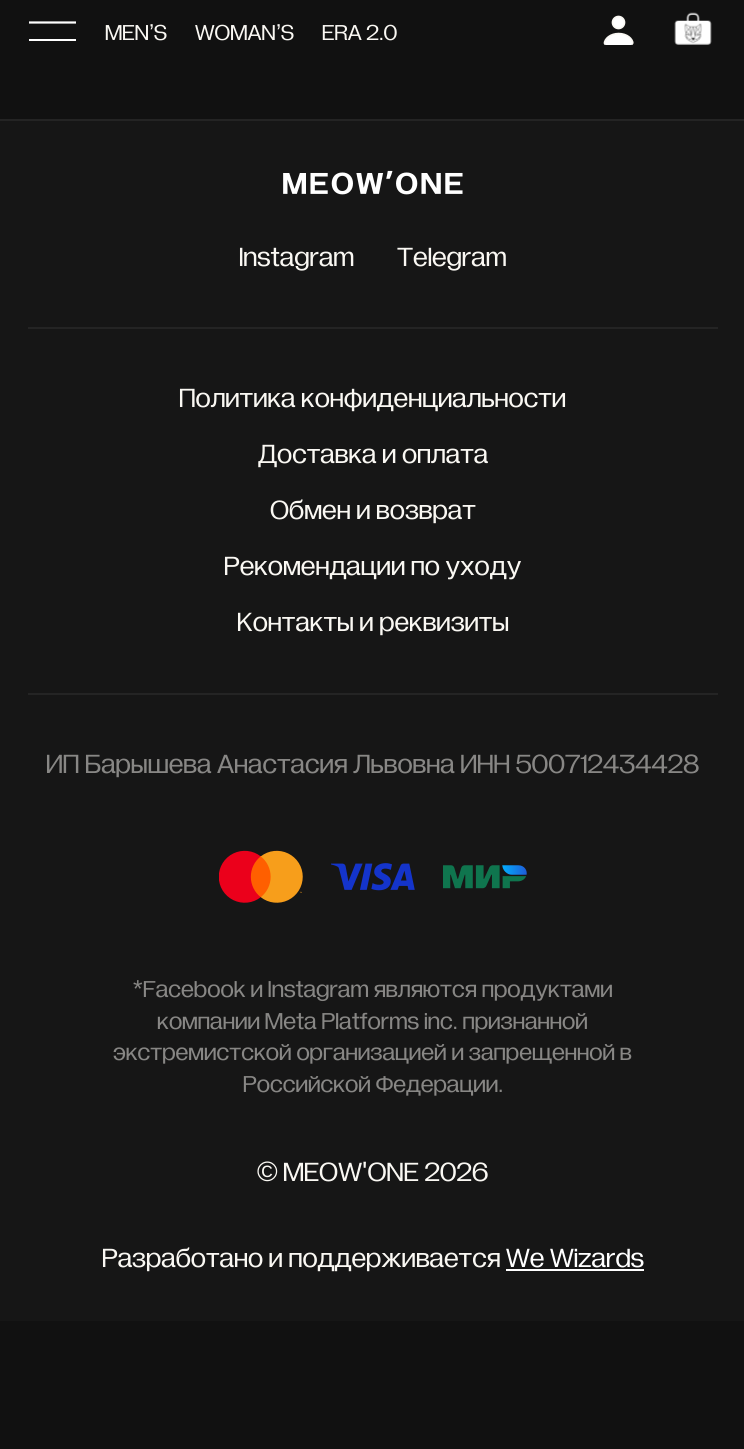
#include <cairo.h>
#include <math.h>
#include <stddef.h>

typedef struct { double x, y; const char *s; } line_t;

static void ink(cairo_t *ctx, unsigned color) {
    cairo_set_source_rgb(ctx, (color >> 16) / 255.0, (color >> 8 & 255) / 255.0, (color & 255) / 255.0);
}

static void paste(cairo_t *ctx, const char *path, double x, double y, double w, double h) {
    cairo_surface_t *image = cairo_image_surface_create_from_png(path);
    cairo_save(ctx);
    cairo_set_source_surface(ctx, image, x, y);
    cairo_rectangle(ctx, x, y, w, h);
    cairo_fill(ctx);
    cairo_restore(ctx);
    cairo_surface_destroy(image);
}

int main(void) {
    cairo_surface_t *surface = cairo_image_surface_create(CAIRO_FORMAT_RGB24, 744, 1449);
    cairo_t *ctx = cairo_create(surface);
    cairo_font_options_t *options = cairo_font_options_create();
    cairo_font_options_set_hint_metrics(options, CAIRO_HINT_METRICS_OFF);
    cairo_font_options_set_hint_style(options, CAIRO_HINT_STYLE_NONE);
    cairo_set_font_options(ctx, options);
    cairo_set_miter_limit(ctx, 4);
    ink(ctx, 0x111111);
    cairo_paint(ctx);
    cairo_new_path(ctx);
    cairo_move_to(ctx, 29, 22.5);
    cairo_line_to(ctx, 76, 22.5);
    ink(ctx, 0xFFFFFF);
    cairo_set_line_width(ctx, 2.2);
    cairo_stroke(ctx);
    cairo_rectangle(ctx, 29, 39, 47, 2);
    cairo_fill(ctx);
    cairo_select_font_face(ctx, "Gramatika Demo", CAIRO_FONT_SLANT_NORMAL, CAIRO_FONT_WEIGHT_NORMAL);
    cairo_set_font_size(ctx, 23);
    ink(ctx, 0xFAF8F3);
    cairo_move_to(ctx, 105, 40);
    cairo_show_text(ctx, "MEN");
    cairo_select_font_face(ctx, "Liberation Sans", CAIRO_FONT_SLANT_NORMAL, CAIRO_FONT_WEIGHT_NORMAL);
    cairo_move_to(ctx, 149, 40);
    cairo_show_text(ctx, "’");
    cairo_select_font_face(ctx, "Gramatika Demo", CAIRO_FONT_SLANT_NORMAL, CAIRO_FONT_WEIGHT_NORMAL);
    cairo_move_to(ctx, 154, 40);
    cairo_show_text(ctx, "S");
    cairo_move_to(ctx, 195, 40);
    cairo_show_text(ctx, "WOMAN");
    cairo_select_font_face(ctx, "Liberation Sans", CAIRO_FONT_SLANT_NORMAL, CAIRO_FONT_WEIGHT_NORMAL);
    cairo_move_to(ctx, 276, 40);
    cairo_show_text(ctx, "’");
    cairo_select_font_face(ctx, "Gramatika Demo", CAIRO_FONT_SLANT_NORMAL, CAIRO_FONT_WEIGHT_NORMAL);
    cairo_move_to(ctx, 281, 40);
    cairo_show_text(ctx, "S");
    cairo_move_to(ctx, 322, 40);
    cairo_show_text(ctx, "ERA 2.0");
    paste(ctx, "media/1.png", 603, 15, 31, 30);
    paste(ctx, "media/2.png", 674, 12, 38, 33);
    ink(ctx, 0x161616);
    cairo_rectangle(ctx, 0, 121, 744, 1200);
    cairo_fill(ctx);
    ink(ctx, 0x242424);
    cairo_rectangle(ctx, 0, 119, 744, 2);
    cairo_fill(ctx);
    paste(ctx, "media/3.png", 283, 170, 180, 25);
    cairo_set_font_size(ctx, 28);
    ink(ctx, 0xFAF8F3);
    cairo_move_to(ctx, 239, 266);
    cairo_show_text(ctx, "Instagram");
    cairo_move_to(ctx, 397, 266);
    cairo_show_text(ctx, "Telegram");
    ink(ctx, 0x242424);
    cairo_rectangle(ctx, 28, 327, 690, 2);
    cairo_fill(ctx);
    cairo_rectangle(ctx, 28, 693, 690, 2);
    cairo_fill(ctx);
    ink(ctx, 0xFAF8F3);
    {
        static const line_t items[] = {
            {179, 407, "Политика конфиденциальности"},
            {258, 463, "Доставка и оплата"},
            {270, 519, "Обмен и возврат"},
            {224, 575, "Рекомендации по уходу"},
            {237, 631, "Контакты и реквизиты"},
        };
        for (size_t i = 0; i < sizeof items / sizeof *items; i++) {
            cairo_move_to(ctx, items[i].x, items[i].y);
            cairo_show_text(ctx, items[i].s);
        }
    }
    ink(ctx, 0x888785);
    cairo_move_to(ctx, 46, 773);
    cairo_show_text(ctx, "ИП Барышева Анастасия Львовна ИНН 500712434428");
    paste(ctx, "media/4.png", 219, 850, 84, 53);
    paste(ctx, "media/5.png", 331, 863, 84, 28);
    paste(ctx, "media/6.png", 443, 865, 84, 24);
    cairo_select_font_face(ctx, "Liberation Sans", CAIRO_FONT_SLANT_NORMAL, CAIRO_FONT_WEIGHT_NORMAL);
    cairo_set_font_size(ctx, 24.5);
    cairo_move_to(ctx, 133, 997);
    cairo_show_text(ctx, "*");
    cairo_select_font_face(ctx, "Gramatika Demo", CAIRO_FONT_SLANT_NORMAL, CAIRO_FONT_WEIGHT_NORMAL);
    {
        static const line_t items[] = {
            {143, 997, "Facebook и Instagram являются продуктами"},
            {157, 1029, "компании Meta Platforms inc. признанной"},
            {113, 1060, "экстремистской организацией и запрещенной в"},
            {243, 1092, "Российской Федерации."},
        };
        for (size_t i = 0; i < sizeof items / sizeof *items; i++) {
            cairo_move_to(ctx, items[i].x, items[i].y);
            cairo_show_text(ctx, items[i].s);
        }
    }
    cairo_select_font_face(ctx, "Liberation Sans", CAIRO_FONT_SLANT_NORMAL, CAIRO_FONT_WEIGHT_NORMAL);
    cairo_set_font_size(ctx, 28);
    ink(ctx, 0xFAF8F3);
    cairo_move_to(ctx, 257, 1181);
    cairo_show_text(ctx, "©");
    cairo_select_font_face(ctx, "Gramatika Demo", CAIRO_FONT_SLANT_NORMAL, CAIRO_FONT_WEIGHT_NORMAL);
    cairo_move_to(ctx, 283, 1181);
    cairo_show_text(ctx, "MEOW ONE 2026");
    cairo_select_font_face(ctx, "Liberation Sans", CAIRO_FONT_SLANT_NORMAL, CAIRO_FONT_WEIGHT_NORMAL);
    cairo_move_to(ctx, 362, 1181);
    cairo_show_text(ctx, "'");
    cairo_select_font_face(ctx, "Gramatika Demo", CAIRO_FONT_SLANT_NORMAL, CAIRO_FONT_WEIGHT_NORMAL);
    cairo_move_to(ctx, 102, 1267);
    cairo_show_text(ctx, "Разработано и поддерживается");
    ink(ctx, 0xFFFFFF);
    cairo_move_to(ctx, 506, 1267);
    cairo_show_text(ctx, "We Wizards");
    cairo_rectangle(ctx, 506, 1269, 138, 2);
    cairo_fill(ctx);
    cairo_surface_write_to_png(surface, "image.png");
    cairo_font_options_destroy(options);
    cairo_destroy(ctx);
    cairo_surface_destroy(surface);
    return 0;
}
